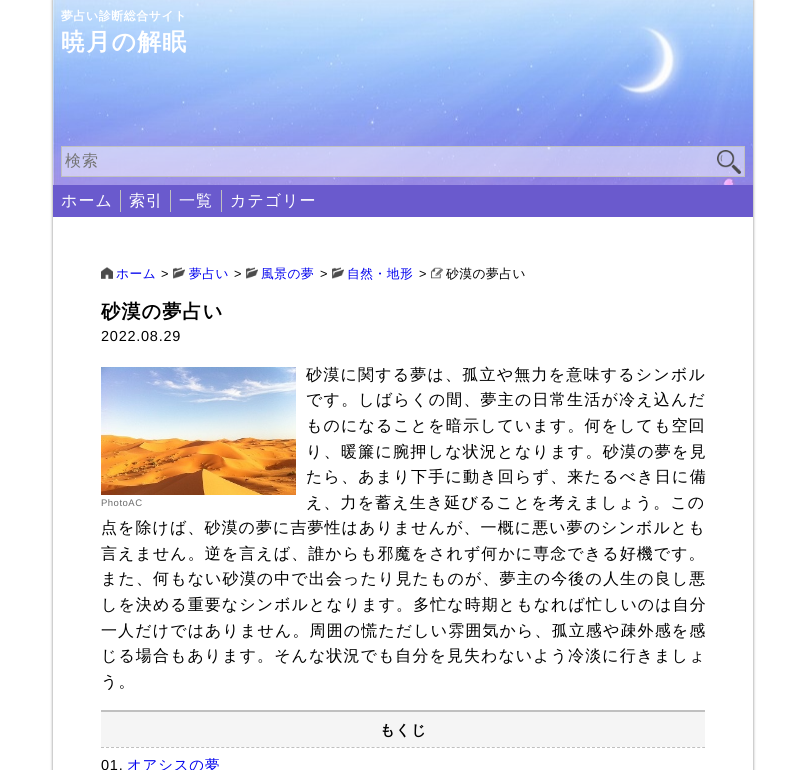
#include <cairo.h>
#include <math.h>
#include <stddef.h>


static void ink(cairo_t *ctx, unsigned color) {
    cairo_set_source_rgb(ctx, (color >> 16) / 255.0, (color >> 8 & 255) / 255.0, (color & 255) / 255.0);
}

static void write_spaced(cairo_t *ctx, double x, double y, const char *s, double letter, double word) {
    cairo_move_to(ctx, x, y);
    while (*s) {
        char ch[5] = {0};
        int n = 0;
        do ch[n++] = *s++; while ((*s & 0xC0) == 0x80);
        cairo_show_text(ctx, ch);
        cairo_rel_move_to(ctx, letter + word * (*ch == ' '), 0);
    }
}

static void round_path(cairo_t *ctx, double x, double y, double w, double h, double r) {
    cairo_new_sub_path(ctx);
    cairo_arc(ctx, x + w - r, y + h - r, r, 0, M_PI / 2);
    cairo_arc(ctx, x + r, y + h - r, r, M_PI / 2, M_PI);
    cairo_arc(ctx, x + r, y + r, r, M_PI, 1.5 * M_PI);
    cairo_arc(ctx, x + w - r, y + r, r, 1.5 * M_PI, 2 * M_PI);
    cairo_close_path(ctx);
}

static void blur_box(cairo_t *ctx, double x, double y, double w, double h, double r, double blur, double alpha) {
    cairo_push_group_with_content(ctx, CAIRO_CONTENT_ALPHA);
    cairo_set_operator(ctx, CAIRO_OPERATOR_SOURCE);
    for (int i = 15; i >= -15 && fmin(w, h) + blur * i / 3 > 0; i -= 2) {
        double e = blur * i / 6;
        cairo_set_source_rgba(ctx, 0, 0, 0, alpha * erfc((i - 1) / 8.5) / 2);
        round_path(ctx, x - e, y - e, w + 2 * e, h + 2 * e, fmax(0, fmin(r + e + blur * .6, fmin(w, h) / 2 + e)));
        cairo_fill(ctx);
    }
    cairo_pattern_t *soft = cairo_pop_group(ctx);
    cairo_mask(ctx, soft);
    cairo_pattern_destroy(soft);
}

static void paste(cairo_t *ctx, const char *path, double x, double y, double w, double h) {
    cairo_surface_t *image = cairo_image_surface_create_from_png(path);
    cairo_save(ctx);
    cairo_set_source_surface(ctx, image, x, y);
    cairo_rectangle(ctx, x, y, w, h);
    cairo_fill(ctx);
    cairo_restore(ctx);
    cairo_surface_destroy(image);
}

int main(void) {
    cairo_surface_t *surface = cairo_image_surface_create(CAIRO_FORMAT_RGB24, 806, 770);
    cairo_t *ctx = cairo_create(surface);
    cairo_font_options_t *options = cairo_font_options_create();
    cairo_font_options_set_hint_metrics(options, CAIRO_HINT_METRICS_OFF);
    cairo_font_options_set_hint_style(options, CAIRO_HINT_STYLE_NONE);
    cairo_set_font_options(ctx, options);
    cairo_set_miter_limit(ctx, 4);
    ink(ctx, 0xFFFFFF);
    cairo_paint(ctx);
    cairo_save(ctx);
    cairo_set_fill_rule(ctx, CAIRO_FILL_RULE_EVEN_ODD);
    cairo_new_path(ctx);
    cairo_move_to(ctx, 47, 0);
    cairo_line_to(ctx, 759, 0);
    cairo_line_to(ctx, 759, 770);
    cairo_line_to(ctx, 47, 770);
    cairo_close_path(ctx);
    cairo_move_to(ctx, 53, 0);
    cairo_line_to(ctx, 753, 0);
    cairo_line_to(ctx, 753, 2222);
    cairo_line_to(ctx, 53, 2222);
    cairo_close_path(ctx);
    cairo_clip(ctx);
    ink(ctx, 0x808080);
    blur_box(ctx, 53, 0, 700, 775, 0, 1.5, 1);
    cairo_restore(ctx);
    paste(ctx, "media/1.png", 53, 0, 700, 185);
    cairo_select_font_face(ctx, "WenQuanYi Zen Hei", CAIRO_FONT_SLANT_NORMAL, CAIRO_FONT_WEIGHT_BOLD);
    cairo_set_font_size(ctx, 12);
    ink(ctx, 0xFFFFFF);
    write_spaced(ctx, 61, 20, "夢占い診断総合サイト", 0.5, 0);
    cairo_set_font_size(ctx, 24);
    write_spaced(ctx, 61, 50, "暁月の解眠", 1.2, 0);
    cairo_set_source_rgba(ctx, 1, 1, 1, 0.5);
    cairo_rectangle(ctx, 61.5, 146.5, 683, 30);
    cairo_fill_preserve(ctx);
    ink(ctx, 0xC0C0C0);
    cairo_set_line_width(ctx, 1);
    cairo_stroke(ctx);
    cairo_select_font_face(ctx, "WenQuanYi Zen Hei Medium", CAIRO_FONT_SLANT_NORMAL, CAIRO_FONT_WEIGHT_NORMAL);
    cairo_set_font_size(ctx, 16);
    ink(ctx, 0x757575);
    write_spaced(ctx, 65, 166, "検索", 1, 0);
    paste(ctx, "media/2.png", 717, 150, 24, 24);
    ink(ctx, 0x6A5ACD);
    cairo_rectangle(ctx, 53, 185, 700, 32);
    cairo_fill(ctx);
    ink(ctx, 0xC0C0C0);
    cairo_rectangle(ctx, 120, 190, 1, 22);
    cairo_fill(ctx);
    ink(ctx, 0xFFFFFF);
    write_spaced(ctx, 61, 206, "ホーム", 1, 0);
    ink(ctx, 0xC0C0C0);
    cairo_rectangle(ctx, 170, 190, 1, 22);
    cairo_fill(ctx);
    ink(ctx, 0xFFFFFF);
    write_spaced(ctx, 129, 206, "索引", 1, 0);
    ink(ctx, 0xC0C0C0);
    cairo_rectangle(ctx, 221, 190, 1, 22);
    cairo_fill(ctx);
    ink(ctx, 0xFFFFFF);
    write_spaced(ctx, 179, 206, "一覧", 1, 0);
    write_spaced(ctx, 230, 206, "カテゴリー", 1, 0);
    paste(ctx, "media/3.png", 101, 267, 12, 12);
    cairo_set_font_size(ctx, 12.75);
    ink(ctx, 0x0000EE);
    write_spaced(ctx, 116, 278, "ホーム", 0.5, 0);
    cairo_select_font_face(ctx, "Liberation Sans", CAIRO_FONT_SLANT_NORMAL, CAIRO_FONT_WEIGHT_NORMAL);
    ink(ctx, 0x000000);
    write_spaced(ctx, 161, 278, ">", 0.5, 0);
    paste(ctx, "media/4.png", 173, 267, 12, 12);
    cairo_select_font_face(ctx, "WenQuanYi Zen Hei Medium", CAIRO_FONT_SLANT_NORMAL, CAIRO_FONT_WEIGHT_NORMAL);
    ink(ctx, 0x0000EE);
    write_spaced(ctx, 189, 278, "夢占い", 0.5, 0);
    cairo_select_font_face(ctx, "Liberation Sans", CAIRO_FONT_SLANT_NORMAL, CAIRO_FONT_WEIGHT_NORMAL);
    ink(ctx, 0x000000);
    write_spaced(ctx, 234, 278, ">", 0.5, 0);
    paste(ctx, "media/4.png", 246, 267, 12, 12);
    cairo_select_font_face(ctx, "WenQuanYi Zen Hei Medium", CAIRO_FONT_SLANT_NORMAL, CAIRO_FONT_WEIGHT_NORMAL);
    ink(ctx, 0x0000EE);
    write_spaced(ctx, 261, 278, "風景の夢", 0.5, 0);
    cairo_select_font_face(ctx, "Liberation Sans", CAIRO_FONT_SLANT_NORMAL, CAIRO_FONT_WEIGHT_NORMAL);
    ink(ctx, 0x000000);
    write_spaced(ctx, 320, 278, ">", 0.5, 0);
    paste(ctx, "media/4.png", 332, 267, 12, 12);
    cairo_select_font_face(ctx, "WenQuanYi Zen Hei Medium", CAIRO_FONT_SLANT_NORMAL, CAIRO_FONT_WEIGHT_NORMAL);
    ink(ctx, 0x0000EE);
    write_spaced(ctx, 347, 278, "自然・地形", 0.5, 0);
    cairo_select_font_face(ctx, "Liberation Sans", CAIRO_FONT_SLANT_NORMAL, CAIRO_FONT_WEIGHT_NORMAL);
    ink(ctx, 0x000000);
    write_spaced(ctx, 419, 278, ">", 0.5, 0);
    paste(ctx, "media/5.png", 431, 267, 12, 12);
    cairo_select_font_face(ctx, "WenQuanYi Zen Hei Medium", CAIRO_FONT_SLANT_NORMAL, CAIRO_FONT_WEIGHT_NORMAL);
    write_spaced(ctx, 446, 278, "砂漠の夢占い", 0.5, 0);
    cairo_select_font_face(ctx, "WenQuanYi Zen Hei", CAIRO_FONT_SLANT_NORMAL, CAIRO_FONT_WEIGHT_BOLD);
    cairo_set_font_size(ctx, 19.25);
    write_spaced(ctx, 101, 318, "砂漠の夢占い", 1, 0);
    cairo_select_font_face(ctx, "Liberation Sans", CAIRO_FONT_SLANT_NORMAL, CAIRO_FONT_WEIGHT_NORMAL);
    cairo_set_font_size(ctx, 14.5);
    write_spaced(ctx, 101, 341, "2022.08.29", 0.75, 0);
    cairo_select_font_face(ctx, "WenQuanYi Zen Hei Medium", CAIRO_FONT_SLANT_NORMAL, CAIRO_FONT_WEIGHT_NORMAL);
    cairo_set_font_size(ctx, 16);
    write_spaced(ctx, 306, 380, "砂漠に関する夢は、孤立や無力を意味するシンボル", 1.2, 0);
    write_spaced(ctx, 306, 405, "です。しばらくの間、夢主の日常生活が冷え込んだ", 1.2, 0);
    write_spaced(ctx, 306, 431, "ものになることを暗示しています。何をしても空回", 1.1, 0);
    write_spaced(ctx, 306, 457, "り、暖簾に腕押しな状況となります。砂漠の夢を見", 1.25, 0);
    write_spaced(ctx, 306, 482, "たら、あまり下手に動き回らず、来たるべき日に備", 1.2, 0);
    write_spaced(ctx, 306, 508, "え、力を蓄え生き延びることを考えましょう。この", 1.1, 0);
    write_spaced(ctx, 101, 533, "点を除けば、砂漠の夢に吉夢性はありませんが、一概に悪い夢のシンボルとも", 1.05, 0);
    write_spaced(ctx, 101, 559, "言えません。逆を言えば、誰からも邪魔をされず何かに専念できる好機です。", 1.05, 0);
    write_spaced(ctx, 101, 584, "また、何もない砂漠の中で出会ったり見たものが、夢主の今後の人生の良し悪", 1.1, 0);
    write_spaced(ctx, 101, 610, "しを決める重要なシンボルとなります。多忙な時期ともなれば忙しいのは自分", 1.05, 0);
    write_spaced(ctx, 101, 636, "一人だけではありません。周囲の慌ただしい雰囲気から、孤立感や疎外感を感", 1.1, 0);
    write_spaced(ctx, 101, 661, "じる場合もあります。そんな状況でも自分を見失わないよう冷淡に行きましょ", 1.05, 0);
    write_spaced(ctx, 101, 687, "う。", 1, 0);
    paste(ctx, "media/6.png", 101, 367, 195, 128);
    cairo_select_font_face(ctx, "Liberation Sans", CAIRO_FONT_SLANT_NORMAL, CAIRO_FONT_WEIGHT_NORMAL);
    cairo_set_font_size(ctx, 9.5);
    ink(ctx, 0x696969);
    write_spaced(ctx, 101, 506, "PhotoAC", 0.5, 0);
    ink(ctx, 0xC0C0C0);
    cairo_rectangle(ctx, 101, 710, 604, 2);
    cairo_fill(ctx);
    ink(ctx, 0xF5F5F5);
    cairo_rectangle(ctx, 101, 712, 604, 35);
    cairo_fill(ctx);
    cairo_select_font_face(ctx, "WenQuanYi Zen Hei", CAIRO_FONT_SLANT_NORMAL, CAIRO_FONT_WEIGHT_BOLD);
    cairo_set_font_size(ctx, 14.5);
    ink(ctx, 0x000000);
    write_spaced(ctx, 380, 735, "もくじ", 0.75, 0);
    cairo_new_path(ctx);
    cairo_move_to(ctx, 101, 747.5);
    cairo_line_to(ctx, 705, 747.5);
    ink(ctx, 0xC0C0C0);
    cairo_set_dash(ctx, (double[]){3, 2.01}, 2, 0);
    cairo_stroke(ctx);
    cairo_select_font_face(ctx, "Liberation Sans", CAIRO_FONT_SLANT_NORMAL, CAIRO_FONT_WEIGHT_NORMAL);
    ink(ctx, 0x000000);
    write_spaced(ctx, 101, 770, "01.", 0.75, 0);
    cairo_select_font_face(ctx, "WenQuanYi Zen Hei Medium", CAIRO_FONT_SLANT_NORMAL, CAIRO_FONT_WEIGHT_NORMAL);
    ink(ctx, 0x0000EE);
    write_spaced(ctx, 127, 770, "オアシスの夢", 0.75, 0);
    cairo_surface_write_to_png(surface, "image.png");
    cairo_font_options_destroy(options);
    cairo_destroy(ctx);
    cairo_surface_destroy(surface);
    return 0;
}
